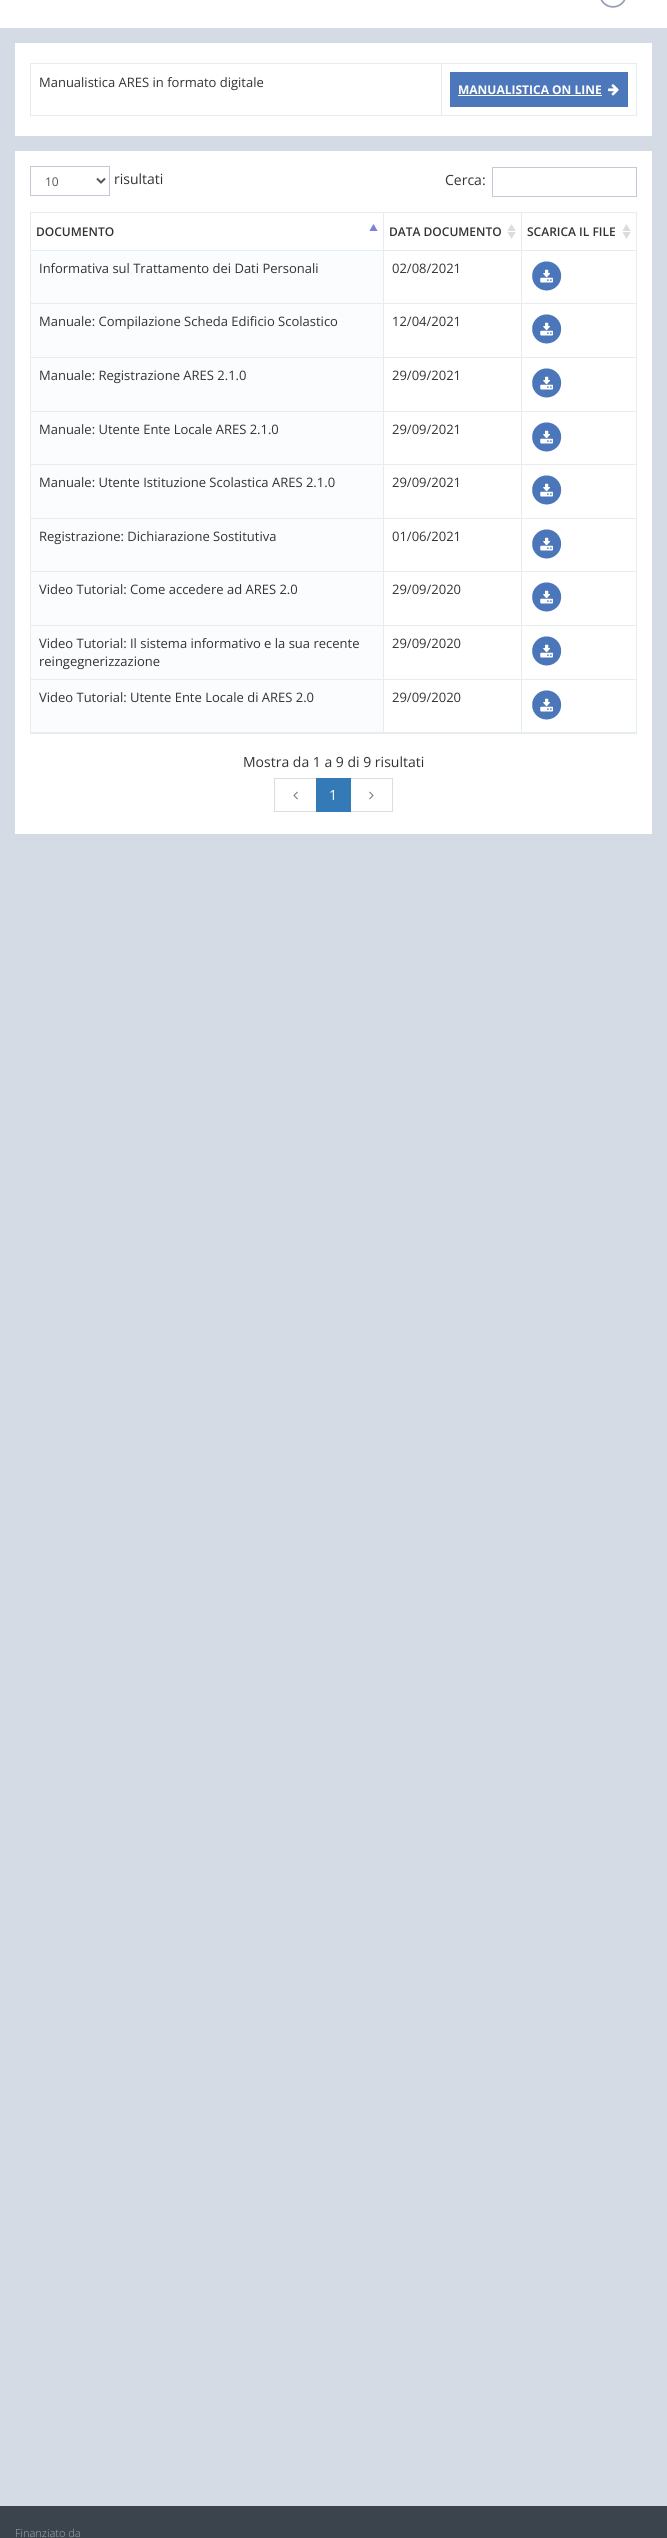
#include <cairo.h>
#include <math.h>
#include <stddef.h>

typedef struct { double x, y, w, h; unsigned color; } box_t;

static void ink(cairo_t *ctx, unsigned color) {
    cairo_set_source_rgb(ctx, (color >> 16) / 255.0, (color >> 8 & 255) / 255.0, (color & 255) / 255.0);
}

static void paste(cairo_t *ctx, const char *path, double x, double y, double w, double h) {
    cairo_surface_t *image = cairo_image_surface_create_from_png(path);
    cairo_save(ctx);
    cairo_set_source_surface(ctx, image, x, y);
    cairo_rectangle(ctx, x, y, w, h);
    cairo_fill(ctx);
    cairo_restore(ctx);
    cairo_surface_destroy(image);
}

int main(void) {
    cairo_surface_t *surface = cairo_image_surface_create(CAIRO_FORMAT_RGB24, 667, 2538);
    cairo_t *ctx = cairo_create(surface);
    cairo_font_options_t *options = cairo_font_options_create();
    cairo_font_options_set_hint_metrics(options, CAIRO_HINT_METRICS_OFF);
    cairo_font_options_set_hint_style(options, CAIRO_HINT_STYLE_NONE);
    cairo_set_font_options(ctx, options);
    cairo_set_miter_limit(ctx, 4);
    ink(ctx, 0xD5DBE4);
    cairo_paint(ctx);
    ink(ctx, 0xFFFFFF);
    cairo_rectangle(ctx, 0, 0, 667, 28);
    cairo_fill(ctx);
    paste(ctx, "media/1.png", 600, 0, 26, 8);
    {
        static const box_t items[] = {
            {15, 43, 637, 93, 0xFFFFFF},
            {30, 63, 607, 1, 0xE7ECF1},
            {636, 63, 1, 53, 0xE7ECF1},
            {30, 115, 607, 1, 0xE7ECF1},
            {30, 63, 1, 53, 0xE7ECF1},
        };
        for (size_t i = 0; i < sizeof items / sizeof *items; i++) {
            ink(ctx, items[i].color);
            cairo_rectangle(ctx, items[i].x, items[i].y, items[i].w, items[i].h);
            cairo_fill(ctx);
        }
    }
    cairo_select_font_face(ctx, "Open Sans", CAIRO_FONT_SLANT_NORMAL, CAIRO_FONT_WEIGHT_NORMAL);
    cairo_set_font_size(ctx, 13);
    ink(ctx, 0x333333);
    cairo_move_to(ctx, 39, 87);
    cairo_show_text(ctx, "Manualistica ARES in formato digitale");
    ink(ctx, 0xE7ECF1);
    cairo_rectangle(ctx, 441, 63, 1, 53);
    cairo_fill(ctx);
    ink(ctx, 0x4D77BB);
    cairo_rectangle(ctx, 450, 72, 178, 35);
    cairo_fill(ctx);
    cairo_select_font_face(ctx, "Open Sans", CAIRO_FONT_SLANT_NORMAL, CAIRO_FONT_WEIGHT_BOLD);
    cairo_set_font_size(ctx, 12);
    ink(ctx, 0xFFFFFF);
    cairo_move_to(ctx, 458, 94);
    cairo_show_text(ctx, "MANUALISTICA ON LINE");
    cairo_rectangle(ctx, 458, 95, 144, 1);
    cairo_fill(ctx);
    paste(ctx, "media/2.png", 608, 84, 11, 12);
    cairo_rectangle(ctx, 15, 151, 637, 683);
    cairo_fill(ctx);
    cairo_rectangle(ctx, 30.5, 166.5, 79, 29);
    ink(ctx, 0xC2CAD8);
    cairo_set_line_width(ctx, 1);
    cairo_stroke(ctx);
    cairo_new_path(ctx);
    cairo_move_to(ctx, 97, 178.5);
    cairo_line_to(ctx, 101, 182.5);
    cairo_line_to(ctx, 105, 178.5);
    ink(ctx, 0x555555);
    cairo_set_line_width(ctx, 2);
    cairo_stroke(ctx);
    cairo_select_font_face(ctx, "Open Sans", CAIRO_FONT_SLANT_NORMAL, CAIRO_FONT_WEIGHT_NORMAL);
    cairo_move_to(ctx, 45, 186);
    cairo_show_text(ctx, "10");
    cairo_set_font_size(ctx, 14);
    ink(ctx, 0x333333);
    cairo_move_to(ctx, 114, 184);
    cairo_show_text(ctx, "risultati");
    cairo_move_to(ctx, 445, 185);
    cairo_show_text(ctx, "Cerca:");
    cairo_rectangle(ctx, 492.5, 167.5, 144, 29);
    ink(ctx, 0xC2CAD8);
    cairo_set_line_width(ctx, 1);
    cairo_stroke(ctx);
    cairo_rectangle(ctx, 30.5, 212.5, 606, 521);
    ink(ctx, 0xE7ECF1);
    cairo_stroke(ctx);
    cairo_rectangle(ctx, 31, 732, 605, 1);
    cairo_fill(ctx);
    paste(ctx, "media/3.png", 369, 224, 9, 7);
    cairo_select_font_face(ctx, "Open Sans SemiBold", CAIRO_FONT_SLANT_NORMAL, CAIRO_FONT_WEIGHT_NORMAL);
    cairo_set_font_size(ctx, 12);
    ink(ctx, 0x333333);
    cairo_move_to(ctx, 36, 236);
    cairo_show_text(ctx, "DOCUMENTO");
    paste(ctx, "media/4.png", 507, 224, 9, 15);
    cairo_move_to(ctx, 389, 236);
    cairo_show_text(ctx, "DATA DOCUMENTO");
    paste(ctx, "media/4.png", 622, 224, 9, 15);
    cairo_move_to(ctx, 527, 236);
    cairo_show_text(ctx, "SCARICA IL FILE");
    {
        static const box_t items[] = {
            {31, 251, 352, 52, 0xFBFCFD},
            {31, 250, 605, 1, 0xE7ECF1},
            {383, 213, 1, 90, 0xE7ECF1},
        };
        for (size_t i = 0; i < sizeof items / sizeof *items; i++) {
            ink(ctx, items[i].color);
            cairo_rectangle(ctx, items[i].x, items[i].y, items[i].w, items[i].h);
            cairo_fill(ctx);
        }
    }
    cairo_select_font_face(ctx, "Open Sans", CAIRO_FONT_SLANT_NORMAL, CAIRO_FONT_WEIGHT_NORMAL);
    cairo_set_font_size(ctx, 13);
    ink(ctx, 0x333333);
    cairo_move_to(ctx, 39, 273);
    cairo_show_text(ctx, "Informativa sul Trattamento dei Dati Personali");
    ink(ctx, 0xE7ECF1);
    cairo_rectangle(ctx, 521, 213, 1, 90);
    cairo_fill(ctx);
    ink(ctx, 0x333333);
    cairo_move_to(ctx, 392, 273);
    cairo_show_text(ctx, "02/08/2021");
    paste(ctx, "media/5.png", 532, 261, 30, 30);
    {
        static const box_t items[] = {
            {31, 304, 352, 53, 0xFBFCFD},
            {31, 303, 605, 1, 0xE7ECF1},
            {383, 303, 1, 54, 0xE7ECF1},
        };
        for (size_t i = 0; i < sizeof items / sizeof *items; i++) {
            ink(ctx, items[i].color);
            cairo_rectangle(ctx, items[i].x, items[i].y, items[i].w, items[i].h);
            cairo_fill(ctx);
        }
    }
    ink(ctx, 0x333333);
    cairo_move_to(ctx, 39, 326);
    cairo_show_text(ctx, "Manuale: Compilazione Scheda Edificio Scolastico");
    ink(ctx, 0xE7ECF1);
    cairo_rectangle(ctx, 521, 303, 1, 54);
    cairo_fill(ctx);
    ink(ctx, 0x333333);
    cairo_move_to(ctx, 392, 326);
    cairo_show_text(ctx, "12/04/2021");
    paste(ctx, "media/5.png", 532, 314, 30, 30);
    {
        static const box_t items[] = {
            {31, 358, 352, 53, 0xFBFCFD},
            {31, 357, 605, 1, 0xE7ECF1},
            {383, 357, 1, 54, 0xE7ECF1},
        };
        for (size_t i = 0; i < sizeof items / sizeof *items; i++) {
            ink(ctx, items[i].color);
            cairo_rectangle(ctx, items[i].x, items[i].y, items[i].w, items[i].h);
            cairo_fill(ctx);
        }
    }
    ink(ctx, 0x333333);
    cairo_move_to(ctx, 39, 380);
    cairo_show_text(ctx, "Manuale: Registrazione ARES 2.1.0");
    ink(ctx, 0xE7ECF1);
    cairo_rectangle(ctx, 521, 357, 1, 54);
    cairo_fill(ctx);
    ink(ctx, 0x333333);
    cairo_move_to(ctx, 392, 380);
    cairo_show_text(ctx, "29/09/2021");
    paste(ctx, "media/5.png", 532, 368, 30, 30);
    {
        static const box_t items[] = {
            {31, 412, 352, 52, 0xFBFCFD},
            {31, 411, 605, 1, 0xE7ECF1},
            {383, 411, 1, 53, 0xE7ECF1},
        };
        for (size_t i = 0; i < sizeof items / sizeof *items; i++) {
            ink(ctx, items[i].color);
            cairo_rectangle(ctx, items[i].x, items[i].y, items[i].w, items[i].h);
            cairo_fill(ctx);
        }
    }
    ink(ctx, 0x333333);
    cairo_move_to(ctx, 39, 434);
    cairo_show_text(ctx, "Manuale: Utente Ente Locale ARES 2.1.0");
    ink(ctx, 0xE7ECF1);
    cairo_rectangle(ctx, 521, 411, 1, 53);
    cairo_fill(ctx);
    ink(ctx, 0x333333);
    cairo_move_to(ctx, 392, 434);
    cairo_show_text(ctx, "29/09/2021");
    paste(ctx, "media/5.png", 532, 422, 30, 30);
    {
        static const box_t items[] = {
            {31, 465, 352, 53, 0xFBFCFD},
            {31, 464, 605, 1, 0xE7ECF1},
            {383, 464, 1, 54, 0xE7ECF1},
        };
        for (size_t i = 0; i < sizeof items / sizeof *items; i++) {
            ink(ctx, items[i].color);
            cairo_rectangle(ctx, items[i].x, items[i].y, items[i].w, items[i].h);
            cairo_fill(ctx);
        }
    }
    ink(ctx, 0x333333);
    cairo_move_to(ctx, 39, 487);
    cairo_show_text(ctx, "Manuale: Utente Istituzione Scolastica ARES 2.1.0");
    ink(ctx, 0xE7ECF1);
    cairo_rectangle(ctx, 521, 464, 1, 54);
    cairo_fill(ctx);
    ink(ctx, 0x333333);
    cairo_move_to(ctx, 392, 487);
    cairo_show_text(ctx, "29/09/2021");
    paste(ctx, "media/5.png", 532, 475, 30, 30);
    {
        static const box_t items[] = {
            {31, 519, 352, 52, 0xFBFCFD},
            {31, 518, 605, 1, 0xE7ECF1},
            {383, 518, 1, 53, 0xE7ECF1},
        };
        for (size_t i = 0; i < sizeof items / sizeof *items; i++) {
            ink(ctx, items[i].color);
            cairo_rectangle(ctx, items[i].x, items[i].y, items[i].w, items[i].h);
            cairo_fill(ctx);
        }
    }
    ink(ctx, 0x333333);
    cairo_move_to(ctx, 39, 541);
    cairo_show_text(ctx, "Registrazione: Dichiarazione Sostitutiva");
    ink(ctx, 0xE7ECF1);
    cairo_rectangle(ctx, 521, 518, 1, 53);
    cairo_fill(ctx);
    ink(ctx, 0x333333);
    cairo_move_to(ctx, 392, 541);
    cairo_show_text(ctx, "01/06/2021");
    paste(ctx, "media/5.png", 532, 529, 30, 30);
    {
        static const box_t items[] = {
            {31, 572, 352, 53, 0xFBFCFD},
            {31, 571, 605, 1, 0xE7ECF1},
            {383, 571, 1, 54, 0xE7ECF1},
        };
        for (size_t i = 0; i < sizeof items / sizeof *items; i++) {
            ink(ctx, items[i].color);
            cairo_rectangle(ctx, items[i].x, items[i].y, items[i].w, items[i].h);
            cairo_fill(ctx);
        }
    }
    ink(ctx, 0x333333);
    cairo_move_to(ctx, 39, 594);
    cairo_show_text(ctx, "Video Tutorial: Come accedere ad ARES 2.0");
    ink(ctx, 0xE7ECF1);
    cairo_rectangle(ctx, 521, 571, 1, 54);
    cairo_fill(ctx);
    ink(ctx, 0x333333);
    cairo_move_to(ctx, 392, 594);
    cairo_show_text(ctx, "29/09/2020");
    paste(ctx, "media/5.png", 532, 582, 30, 30);
    {
        static const box_t items[] = {
            {31, 626, 352, 53, 0xFBFCFD},
            {31, 625, 605, 1, 0xE7ECF1},
            {383, 625, 1, 54, 0xE7ECF1},
        };
        for (size_t i = 0; i < sizeof items / sizeof *items; i++) {
            ink(ctx, items[i].color);
            cairo_rectangle(ctx, items[i].x, items[i].y, items[i].w, items[i].h);
            cairo_fill(ctx);
        }
    }
    ink(ctx, 0x333333);
    cairo_move_to(ctx, 39, 648);
    cairo_show_text(ctx, "Video Tutorial: Il sistema informativo e la sua recente");
    cairo_move_to(ctx, 39, 666);
    cairo_show_text(ctx, "reingegnerizzazione");
    ink(ctx, 0xE7ECF1);
    cairo_rectangle(ctx, 521, 625, 1, 54);
    cairo_fill(ctx);
    ink(ctx, 0x333333);
    cairo_move_to(ctx, 392, 648);
    cairo_show_text(ctx, "29/09/2020");
    paste(ctx, "media/5.png", 532, 636, 30, 30);
    {
        static const box_t items[] = {
            {31, 680, 352, 52, 0xFBFCFD},
            {31, 679, 605, 1, 0xE7ECF1},
            {383, 679, 1, 53, 0xE7ECF1},
        };
        for (size_t i = 0; i < sizeof items / sizeof *items; i++) {
            ink(ctx, items[i].color);
            cairo_rectangle(ctx, items[i].x, items[i].y, items[i].w, items[i].h);
            cairo_fill(ctx);
        }
    }
    ink(ctx, 0x333333);
    cairo_move_to(ctx, 39, 702);
    cairo_show_text(ctx, "Video Tutorial: Utente Ente Locale di ARES 2.0");
    ink(ctx, 0xE7ECF1);
    cairo_rectangle(ctx, 521, 679, 1, 53);
    cairo_fill(ctx);
    ink(ctx, 0x333333);
    cairo_move_to(ctx, 392, 702);
    cairo_show_text(ctx, "29/09/2020");
    paste(ctx, "media/5.png", 532, 690, 30, 30);
    cairo_set_font_size(ctx, 14);
    cairo_move_to(ctx, 243, 767);
    cairo_show_text(ctx, "Mostra da 1 a 9 di 9 risultati");
    cairo_rectangle(ctx, 274.5, 778.5, 42, 33);
    ink(ctx, 0xDDDDDD);
    cairo_stroke(ctx);
    paste(ctx, "media/6.png", 293, 791, 5, 9);
    cairo_rectangle(ctx, 350.5, 778.5, 42, 33);
    cairo_stroke(ctx);
    ink(ctx, 0x337AB7);
    cairo_rectangle(ctx, 316, 778, 35, 34);
    cairo_fill(ctx);
    ink(ctx, 0xFFFFFF);
    cairo_move_to(ctx, 329, 800);
    cairo_show_text(ctx, "1");
    paste(ctx, "media/7.png", 369, 791, 5, 9);
    ink(ctx, 0x3B434C);
    cairo_rectangle(ctx, 0, 2506, 667, 32);
    cairo_fill(ctx);
    cairo_select_font_face(ctx, "Open Sans Light", CAIRO_FONT_SLANT_NORMAL, CAIRO_FONT_WEIGHT_NORMAL);
    cairo_set_font_size(ctx, 11);
    ink(ctx, 0xA2ABB7);
    cairo_move_to(ctx, 15, 2537);
    cairo_show_text(ctx, "Finanziato da");
    cairo_surface_write_to_png(surface, "image.png");
    cairo_font_options_destroy(options);
    cairo_destroy(ctx);
    cairo_surface_destroy(surface);
    return 0;
}
